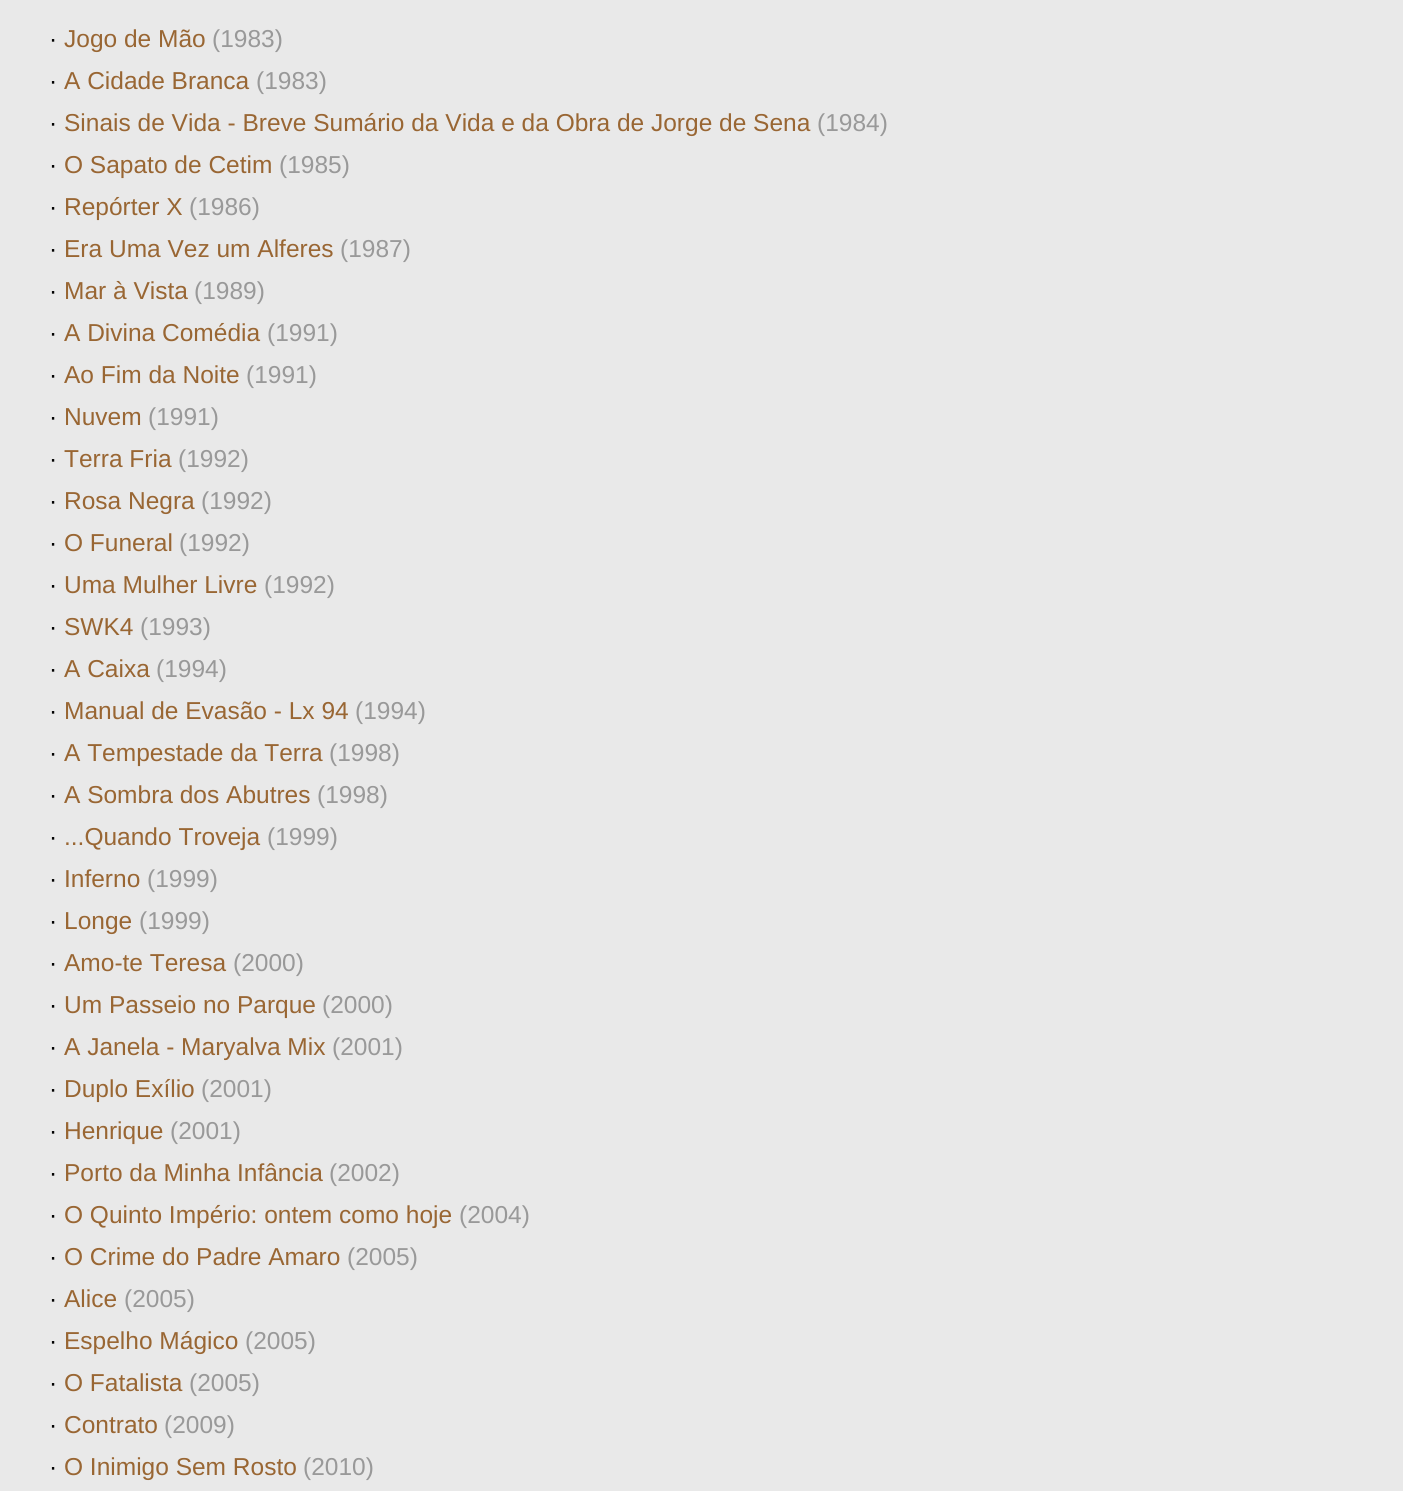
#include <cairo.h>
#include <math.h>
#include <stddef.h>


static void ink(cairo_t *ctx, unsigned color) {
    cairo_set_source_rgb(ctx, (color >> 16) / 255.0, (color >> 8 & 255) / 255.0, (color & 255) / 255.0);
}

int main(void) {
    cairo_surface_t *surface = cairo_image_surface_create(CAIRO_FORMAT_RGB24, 1403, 1491);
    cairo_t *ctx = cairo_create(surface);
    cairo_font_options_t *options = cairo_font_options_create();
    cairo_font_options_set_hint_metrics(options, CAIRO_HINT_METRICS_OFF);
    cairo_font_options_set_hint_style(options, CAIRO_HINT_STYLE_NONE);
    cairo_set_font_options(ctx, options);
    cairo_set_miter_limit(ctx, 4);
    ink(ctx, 0xE9E9E9);
    cairo_paint(ctx);
    cairo_select_font_face(ctx, "Liberation Sans", CAIRO_FONT_SLANT_NORMAL, CAIRO_FONT_WEIGHT_NORMAL);
    cairo_set_font_size(ctx, 24.5);
    ink(ctx, 0x000000);
    cairo_move_to(ctx, 49, 47);
    cairo_show_text(ctx, "·");
    ink(ctx, 0x996633);
    cairo_move_to(ctx, 64, 47);
    cairo_show_text(ctx, "Jogo de Mão");
    ink(ctx, 0x999999);
    cairo_move_to(ctx, 212, 47);
    cairo_show_text(ctx, "(1983)");
    ink(ctx, 0x000000);
    cairo_move_to(ctx, 49, 89);
    cairo_show_text(ctx, "·");
    ink(ctx, 0x996633);
    cairo_move_to(ctx, 64, 89);
    cairo_show_text(ctx, "A Cidade Branca");
    ink(ctx, 0x999999);
    cairo_move_to(ctx, 256, 89);
    cairo_show_text(ctx, "(1983)");
    ink(ctx, 0x000000);
    cairo_move_to(ctx, 49, 131);
    cairo_show_text(ctx, "·");
    ink(ctx, 0x996633);
    cairo_move_to(ctx, 64, 131);
    cairo_show_text(ctx, "Sinais de Vida - Breve Sumário da Vida e da Obra de Jorge de Sena");
    ink(ctx, 0x999999);
    cairo_move_to(ctx, 817, 131);
    cairo_show_text(ctx, "(1984)");
    ink(ctx, 0x000000);
    cairo_move_to(ctx, 49, 173);
    cairo_show_text(ctx, "·");
    ink(ctx, 0x996633);
    cairo_move_to(ctx, 64, 173);
    cairo_show_text(ctx, "O Sapato de Cetim");
    ink(ctx, 0x999999);
    cairo_move_to(ctx, 279, 173);
    cairo_show_text(ctx, "(1985)");
    ink(ctx, 0x000000);
    cairo_move_to(ctx, 49, 215);
    cairo_show_text(ctx, "·");
    ink(ctx, 0x996633);
    cairo_move_to(ctx, 64, 215);
    cairo_show_text(ctx, "Repórter X");
    ink(ctx, 0x999999);
    cairo_move_to(ctx, 189, 215);
    cairo_show_text(ctx, "(1986)");
    ink(ctx, 0x000000);
    cairo_move_to(ctx, 49, 257);
    cairo_show_text(ctx, "·");
    ink(ctx, 0x996633);
    cairo_move_to(ctx, 64, 257);
    cairo_show_text(ctx, "Era Uma Vez um Alferes");
    ink(ctx, 0x999999);
    cairo_move_to(ctx, 340, 257);
    cairo_show_text(ctx, "(1987)");
    ink(ctx, 0x000000);
    cairo_move_to(ctx, 49, 299);
    cairo_show_text(ctx, "·");
    ink(ctx, 0x996633);
    cairo_move_to(ctx, 64, 299);
    cairo_show_text(ctx, "Mar à Vista");
    ink(ctx, 0x999999);
    cairo_move_to(ctx, 194, 299);
    cairo_show_text(ctx, "(1989)");
    ink(ctx, 0x000000);
    cairo_move_to(ctx, 49, 341);
    cairo_show_text(ctx, "·");
    ink(ctx, 0x996633);
    cairo_move_to(ctx, 64, 341);
    cairo_show_text(ctx, "A Divina Comédia");
    ink(ctx, 0x999999);
    cairo_move_to(ctx, 267, 341);
    cairo_show_text(ctx, "(1991)");
    ink(ctx, 0x000000);
    cairo_move_to(ctx, 49, 383);
    cairo_show_text(ctx, "·");
    ink(ctx, 0x996633);
    cairo_move_to(ctx, 64, 383);
    cairo_show_text(ctx, "Ao Fim da Noite");
    ink(ctx, 0x999999);
    cairo_move_to(ctx, 246, 383);
    cairo_show_text(ctx, "(1991)");
    ink(ctx, 0x000000);
    cairo_move_to(ctx, 49, 425);
    cairo_show_text(ctx, "·");
    ink(ctx, 0x996633);
    cairo_move_to(ctx, 64, 425);
    cairo_show_text(ctx, "Nuvem");
    ink(ctx, 0x999999);
    cairo_move_to(ctx, 148, 425);
    cairo_show_text(ctx, "(1991)");
    ink(ctx, 0x000000);
    cairo_move_to(ctx, 49, 467);
    cairo_show_text(ctx, "·");
    ink(ctx, 0x996633);
    cairo_move_to(ctx, 64, 467);
    cairo_show_text(ctx, "Terra Fria");
    ink(ctx, 0x999999);
    cairo_move_to(ctx, 178, 467);
    cairo_show_text(ctx, "(1992)");
    ink(ctx, 0x000000);
    cairo_move_to(ctx, 49, 509);
    cairo_show_text(ctx, "·");
    ink(ctx, 0x996633);
    cairo_move_to(ctx, 64, 509);
    cairo_show_text(ctx, "Rosa Negra");
    ink(ctx, 0x999999);
    cairo_move_to(ctx, 201, 509);
    cairo_show_text(ctx, "(1992)");
    ink(ctx, 0x000000);
    cairo_move_to(ctx, 49, 551);
    cairo_show_text(ctx, "·");
    ink(ctx, 0x996633);
    cairo_move_to(ctx, 64, 551);
    cairo_show_text(ctx, "O Funeral");
    ink(ctx, 0x999999);
    cairo_move_to(ctx, 179, 551);
    cairo_show_text(ctx, "(1992)");
    ink(ctx, 0x000000);
    cairo_move_to(ctx, 49, 593);
    cairo_show_text(ctx, "·");
    ink(ctx, 0x996633);
    cairo_move_to(ctx, 64, 593);
    cairo_show_text(ctx, "Uma Mulher Livre");
    ink(ctx, 0x999999);
    cairo_move_to(ctx, 264, 593);
    cairo_show_text(ctx, "(1992)");
    ink(ctx, 0x000000);
    cairo_move_to(ctx, 49, 635);
    cairo_show_text(ctx, "·");
    ink(ctx, 0x996633);
    cairo_move_to(ctx, 64, 635);
    cairo_show_text(ctx, "SWK4");
    ink(ctx, 0x999999);
    cairo_move_to(ctx, 140, 635);
    cairo_show_text(ctx, "(1993)");
    ink(ctx, 0x000000);
    cairo_move_to(ctx, 49, 677);
    cairo_show_text(ctx, "·");
    ink(ctx, 0x996633);
    cairo_move_to(ctx, 64, 677);
    cairo_show_text(ctx, "A Caixa");
    ink(ctx, 0x999999);
    cairo_move_to(ctx, 156, 677);
    cairo_show_text(ctx, "(1994)");
    ink(ctx, 0x000000);
    cairo_move_to(ctx, 49, 719);
    cairo_show_text(ctx, "·");
    ink(ctx, 0x996633);
    cairo_move_to(ctx, 64, 719);
    cairo_show_text(ctx, "Manual de Evasão - Lx 94");
    ink(ctx, 0x999999);
    cairo_move_to(ctx, 355, 719);
    cairo_show_text(ctx, "(1994)");
    ink(ctx, 0x000000);
    cairo_move_to(ctx, 49, 761);
    cairo_show_text(ctx, "·");
    ink(ctx, 0x996633);
    cairo_move_to(ctx, 64, 761);
    cairo_show_text(ctx, "A Tempestade da Terra");
    ink(ctx, 0x999999);
    cairo_move_to(ctx, 329, 761);
    cairo_show_text(ctx, "(1998)");
    ink(ctx, 0x000000);
    cairo_move_to(ctx, 49, 803);
    cairo_show_text(ctx, "·");
    ink(ctx, 0x996633);
    cairo_move_to(ctx, 64, 803);
    cairo_show_text(ctx, "A Sombra dos Abutres");
    ink(ctx, 0x999999);
    cairo_move_to(ctx, 317, 803);
    cairo_show_text(ctx, "(1998)");
    ink(ctx, 0x000000);
    cairo_move_to(ctx, 49, 845);
    cairo_show_text(ctx, "·");
    ink(ctx, 0x996633);
    cairo_move_to(ctx, 64, 845);
    cairo_show_text(ctx, "...Quando Troveja");
    ink(ctx, 0x999999);
    cairo_move_to(ctx, 267, 845);
    cairo_show_text(ctx, "(1999)");
    ink(ctx, 0x000000);
    cairo_move_to(ctx, 49, 887);
    cairo_show_text(ctx, "·");
    ink(ctx, 0x996633);
    cairo_move_to(ctx, 64, 887);
    cairo_show_text(ctx, "Inferno");
    ink(ctx, 0x999999);
    cairo_move_to(ctx, 147, 887);
    cairo_show_text(ctx, "(1999)");
    ink(ctx, 0x000000);
    cairo_move_to(ctx, 49, 929);
    cairo_show_text(ctx, "·");
    ink(ctx, 0x996633);
    cairo_move_to(ctx, 64, 929);
    cairo_show_text(ctx, "Longe");
    ink(ctx, 0x999999);
    cairo_move_to(ctx, 139, 929);
    cairo_show_text(ctx, "(1999)");
    ink(ctx, 0x000000);
    cairo_move_to(ctx, 49, 971);
    cairo_show_text(ctx, "·");
    ink(ctx, 0x996633);
    cairo_move_to(ctx, 64, 971);
    cairo_show_text(ctx, "Amo-te Teresa");
    ink(ctx, 0x999999);
    cairo_move_to(ctx, 233, 971);
    cairo_show_text(ctx, "(2000)");
    ink(ctx, 0x000000);
    cairo_move_to(ctx, 49, 1013);
    cairo_show_text(ctx, "·");
    ink(ctx, 0x996633);
    cairo_move_to(ctx, 64, 1013);
    cairo_show_text(ctx, "Um Passeio no Parque");
    ink(ctx, 0x999999);
    cairo_move_to(ctx, 322, 1013);
    cairo_show_text(ctx, "(2000)");
    ink(ctx, 0x000000);
    cairo_move_to(ctx, 49, 1055);
    cairo_show_text(ctx, "·");
    ink(ctx, 0x996633);
    cairo_move_to(ctx, 64, 1055);
    cairo_show_text(ctx, "A Janela - Maryalva Mix");
    ink(ctx, 0x999999);
    cairo_move_to(ctx, 332, 1055);
    cairo_show_text(ctx, "(2001)");
    ink(ctx, 0x000000);
    cairo_move_to(ctx, 49, 1097);
    cairo_show_text(ctx, "·");
    ink(ctx, 0x996633);
    cairo_move_to(ctx, 64, 1097);
    cairo_show_text(ctx, "Duplo Exílio");
    ink(ctx, 0x999999);
    cairo_move_to(ctx, 201, 1097);
    cairo_show_text(ctx, "(2001)");
    ink(ctx, 0x000000);
    cairo_move_to(ctx, 49, 1139);
    cairo_show_text(ctx, "·");
    ink(ctx, 0x996633);
    cairo_move_to(ctx, 64, 1139);
    cairo_show_text(ctx, "Henrique");
    ink(ctx, 0x999999);
    cairo_move_to(ctx, 170, 1139);
    cairo_show_text(ctx, "(2001)");
    ink(ctx, 0x000000);
    cairo_move_to(ctx, 49, 1181);
    cairo_show_text(ctx, "·");
    ink(ctx, 0x996633);
    cairo_move_to(ctx, 64, 1181);
    cairo_show_text(ctx, "Porto da Minha Infância");
    ink(ctx, 0x999999);
    cairo_move_to(ctx, 329, 1181);
    cairo_show_text(ctx, "(2002)");
    ink(ctx, 0x000000);
    cairo_move_to(ctx, 49, 1223);
    cairo_show_text(ctx, "·");
    ink(ctx, 0x996633);
    cairo_move_to(ctx, 64, 1223);
    cairo_show_text(ctx, "O Quinto Império: ontem como hoje");
    ink(ctx, 0x999999);
    cairo_move_to(ctx, 459, 1223);
    cairo_show_text(ctx, "(2004)");
    ink(ctx, 0x000000);
    cairo_move_to(ctx, 49, 1265);
    cairo_show_text(ctx, "·");
    ink(ctx, 0x996633);
    cairo_move_to(ctx, 64, 1265);
    cairo_show_text(ctx, "O Crime do Padre Amaro");
    ink(ctx, 0x999999);
    cairo_move_to(ctx, 347, 1265);
    cairo_show_text(ctx, "(2005)");
    ink(ctx, 0x000000);
    cairo_move_to(ctx, 49, 1307);
    cairo_show_text(ctx, "·");
    ink(ctx, 0x996633);
    cairo_move_to(ctx, 64, 1307);
    cairo_show_text(ctx, "Alice");
    ink(ctx, 0x999999);
    cairo_move_to(ctx, 124, 1307);
    cairo_show_text(ctx, "(2005)");
    ink(ctx, 0x000000);
    cairo_move_to(ctx, 49, 1349);
    cairo_show_text(ctx, "·");
    ink(ctx, 0x996633);
    cairo_move_to(ctx, 64, 1349);
    cairo_show_text(ctx, "Espelho Mágico");
    ink(ctx, 0x999999);
    cairo_move_to(ctx, 245, 1349);
    cairo_show_text(ctx, "(2005)");
    ink(ctx, 0x000000);
    cairo_move_to(ctx, 49, 1391);
    cairo_show_text(ctx, "·");
    ink(ctx, 0x996633);
    cairo_move_to(ctx, 64, 1391);
    cairo_show_text(ctx, "O Fatalista");
    ink(ctx, 0x999999);
    cairo_move_to(ctx, 189, 1391);
    cairo_show_text(ctx, "(2005)");
    ink(ctx, 0x000000);
    cairo_move_to(ctx, 49, 1433);
    cairo_show_text(ctx, "·");
    ink(ctx, 0x996633);
    cairo_move_to(ctx, 64, 1433);
    cairo_show_text(ctx, "Contrato");
    ink(ctx, 0x999999);
    cairo_move_to(ctx, 164, 1433);
    cairo_show_text(ctx, "(2009)");
    ink(ctx, 0x000000);
    cairo_move_to(ctx, 49, 1475);
    cairo_show_text(ctx, "·");
    ink(ctx, 0x996633);
    cairo_move_to(ctx, 64, 1475);
    cairo_show_text(ctx, "O Inimigo Sem Rosto");
    ink(ctx, 0x999999);
    cairo_move_to(ctx, 303, 1475);
    cairo_show_text(ctx, "(2010)");
    cairo_surface_write_to_png(surface, "image.png");
    cairo_font_options_destroy(options);
    cairo_destroy(ctx);
    cairo_surface_destroy(surface);
    return 0;
}
